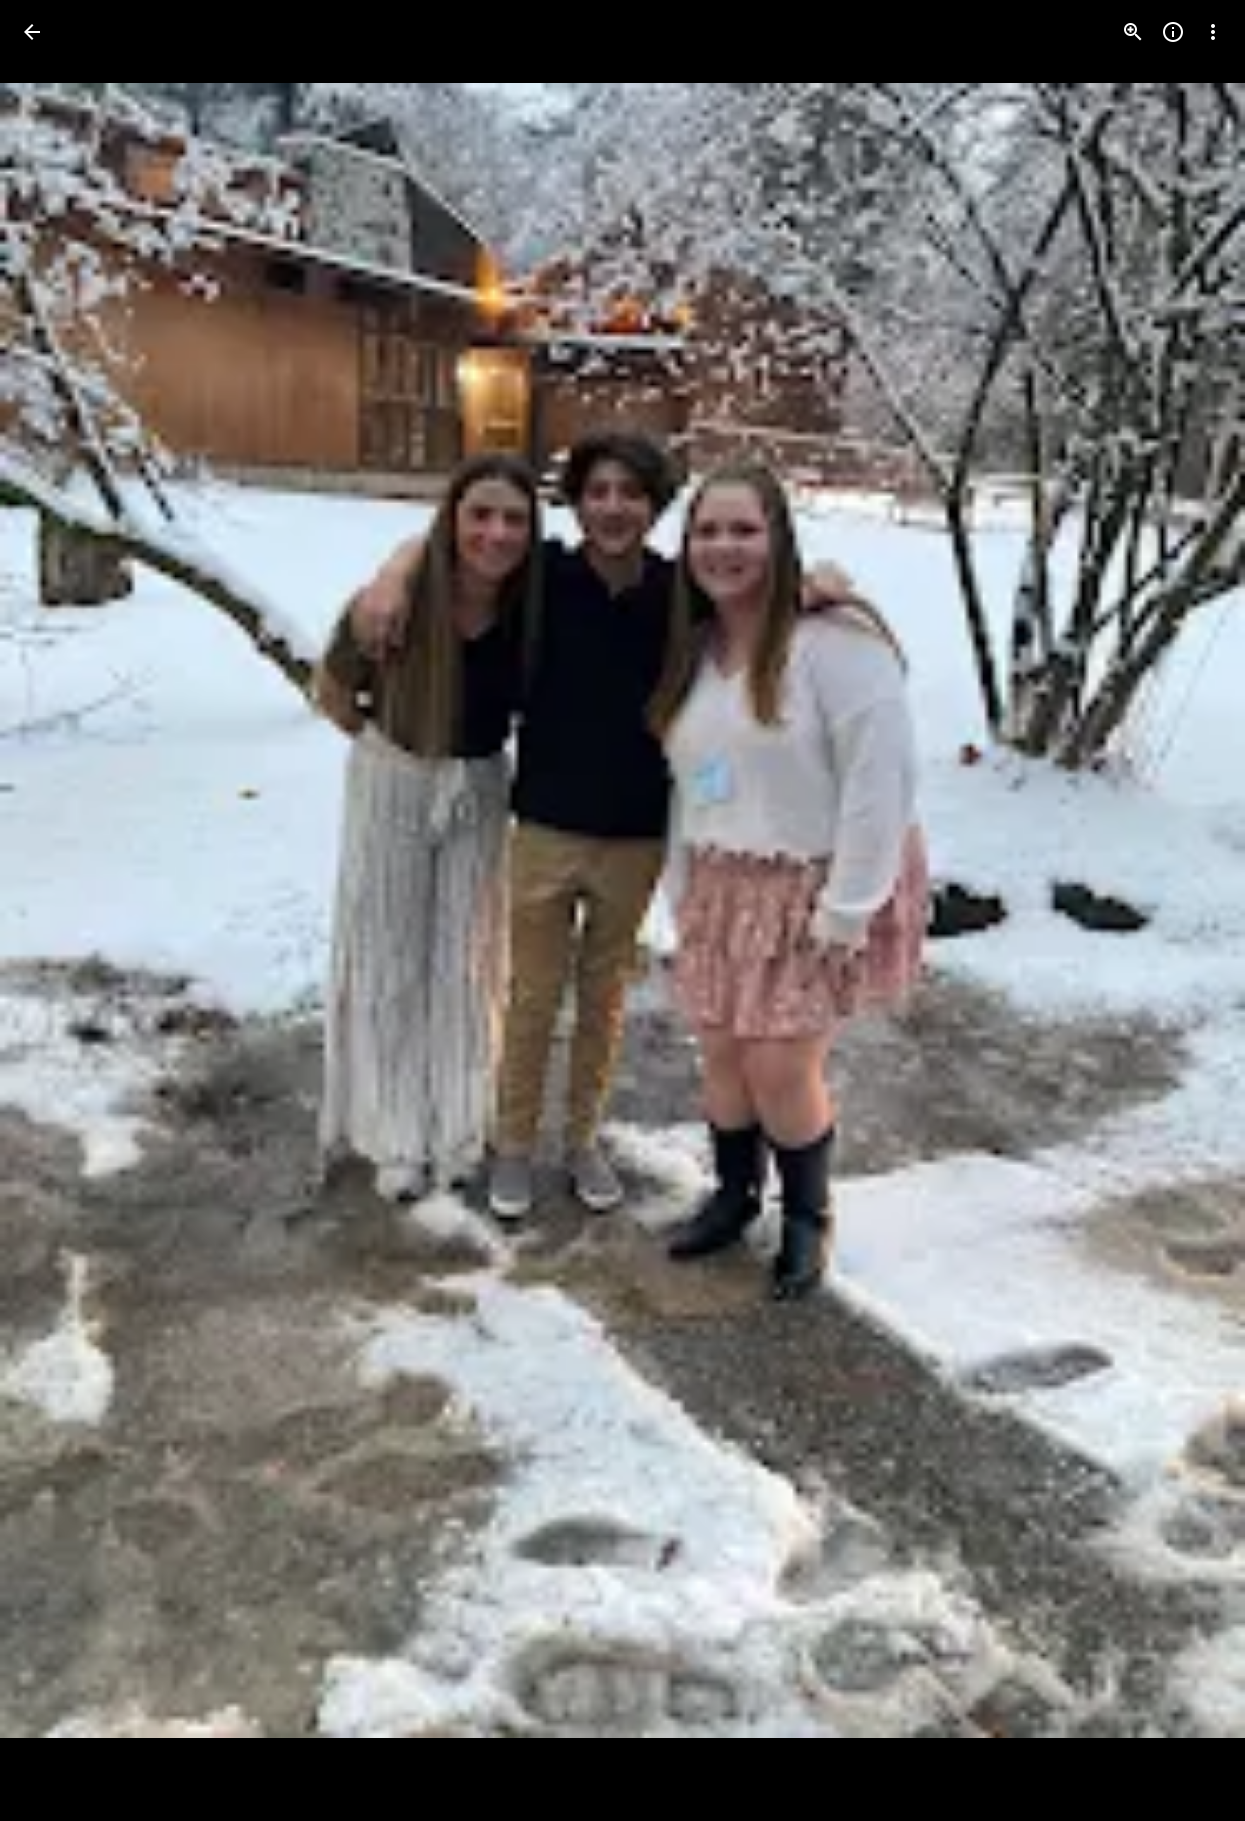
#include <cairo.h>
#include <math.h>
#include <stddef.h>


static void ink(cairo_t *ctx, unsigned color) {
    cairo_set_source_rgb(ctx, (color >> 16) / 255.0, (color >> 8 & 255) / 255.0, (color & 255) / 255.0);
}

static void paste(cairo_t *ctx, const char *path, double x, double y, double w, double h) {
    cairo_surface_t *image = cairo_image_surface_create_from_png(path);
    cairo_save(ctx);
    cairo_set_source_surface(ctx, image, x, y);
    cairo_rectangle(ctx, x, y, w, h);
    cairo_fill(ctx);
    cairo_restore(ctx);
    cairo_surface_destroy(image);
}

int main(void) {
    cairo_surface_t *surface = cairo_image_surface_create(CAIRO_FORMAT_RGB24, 1245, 1821);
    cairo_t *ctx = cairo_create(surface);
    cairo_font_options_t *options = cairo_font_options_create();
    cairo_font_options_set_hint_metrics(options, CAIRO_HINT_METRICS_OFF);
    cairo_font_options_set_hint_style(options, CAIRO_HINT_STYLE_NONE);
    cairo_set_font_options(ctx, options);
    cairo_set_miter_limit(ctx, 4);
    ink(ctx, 0x000000);
    cairo_paint(ctx);
    paste(ctx, "media/1.png", 24, 24, 16, 16);
    paste(ctx, "media/2.png", 1124, 23, 18, 18);
    paste(ctx, "media/3.png", 1163, 22, 20, 20);
    paste(ctx, "media/4.png", 1211, 24, 4, 16);
    paste(ctx, "media/5.png", 0, 83, 1245, 1655);
    cairo_surface_write_to_png(surface, "image.png");
    cairo_font_options_destroy(options);
    cairo_destroy(ctx);
    cairo_surface_destroy(surface);
    return 0;
}
